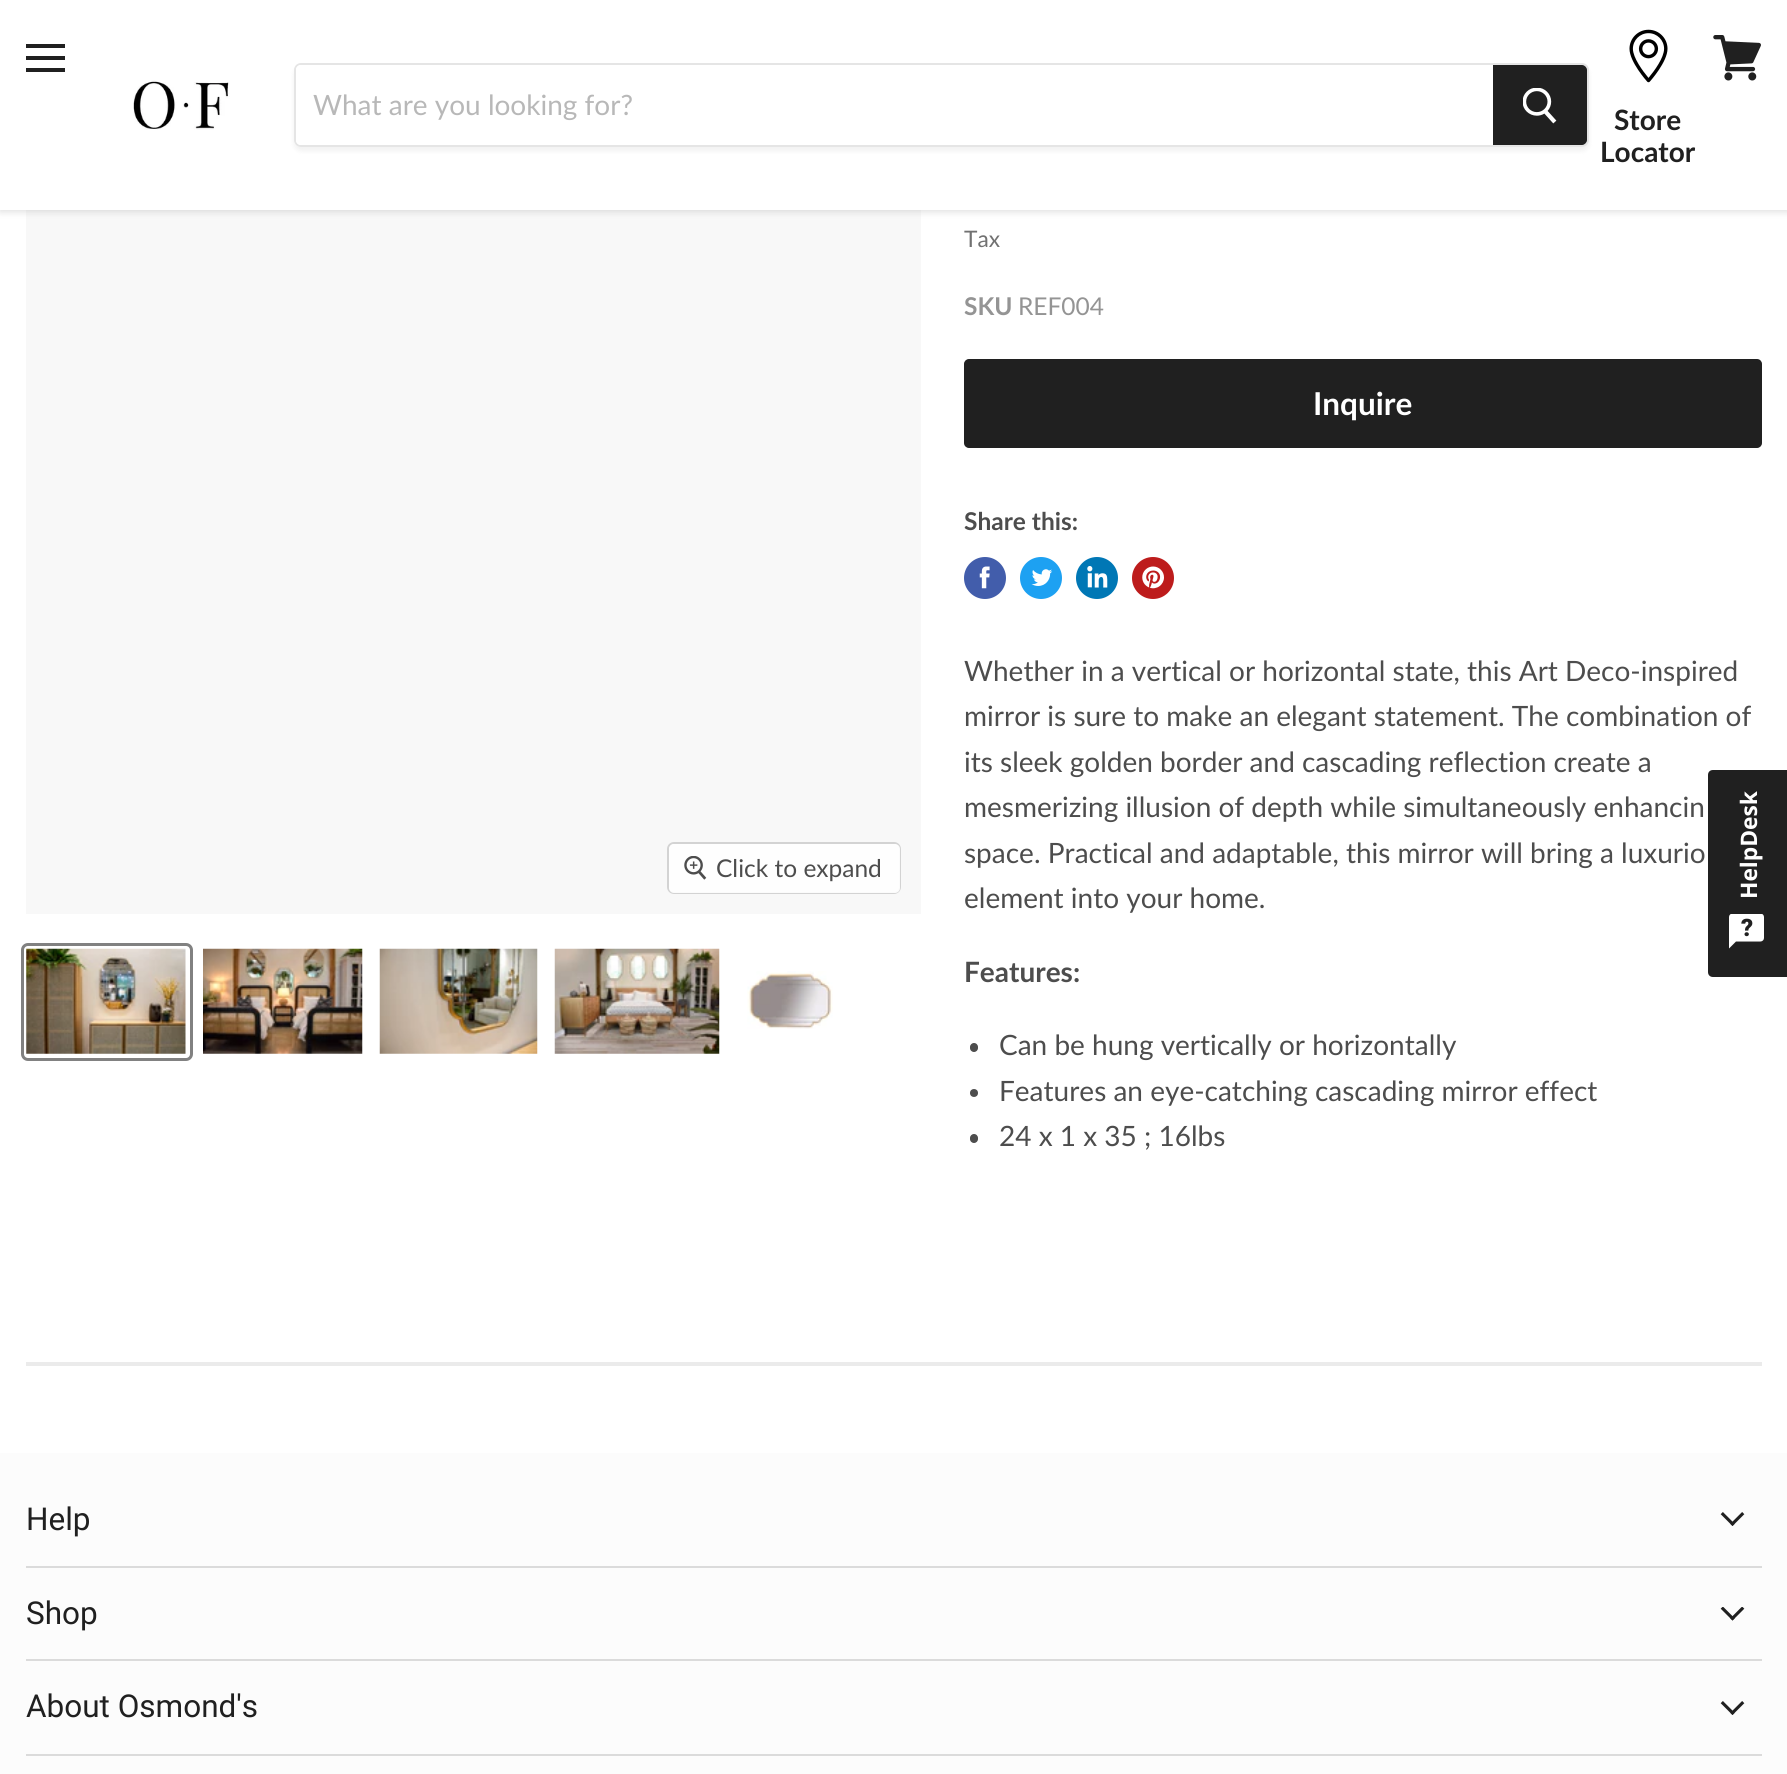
#include <cairo.h>
#include <math.h>
#include <stddef.h>

typedef struct { double x, y; const char *s; } line_t;
typedef struct { double x, y, w, h; unsigned color; } box_t;

static void ink(cairo_t *ctx, unsigned color) {
    cairo_set_source_rgb(ctx, (color >> 16) / 255.0, (color >> 8 & 255) / 255.0, (color & 255) / 255.0);
}

static void round_path(cairo_t *ctx, double x, double y, double w, double h, double r) {
    cairo_new_sub_path(ctx);
    cairo_arc(ctx, x + w - r, y + h - r, r, 0, M_PI / 2);
    cairo_arc(ctx, x + r, y + h - r, r, M_PI / 2, M_PI);
    cairo_arc(ctx, x + r, y + r, r, M_PI, 1.5 * M_PI);
    cairo_arc(ctx, x + w - r, y + r, r, 1.5 * M_PI, 2 * M_PI);
    cairo_close_path(ctx);
}

static void blur_box(cairo_t *ctx, double x, double y, double w, double h, double r, double blur, double alpha) {
    cairo_push_group_with_content(ctx, CAIRO_CONTENT_ALPHA);
    cairo_set_operator(ctx, CAIRO_OPERATOR_SOURCE);
    for (int i = 15; i >= -15 && fmin(w, h) + blur * i / 3 > 0; i -= 2) {
        double e = blur * i / 6;
        cairo_set_source_rgba(ctx, 0, 0, 0, alpha * erfc((i - 1) / 8.5) / 2);
        round_path(ctx, x - e, y - e, w + 2 * e, h + 2 * e, fmax(0, fmin(r + e + blur * .6, fmin(w, h) / 2 + e)));
        cairo_fill(ctx);
    }
    cairo_pattern_t *soft = cairo_pop_group(ctx);
    cairo_mask(ctx, soft);
    cairo_pattern_destroy(soft);
}

static void paste(cairo_t *ctx, const char *path, double x, double y, double w, double h) {
    cairo_surface_t *image = cairo_image_surface_create_from_png(path);
    cairo_save(ctx);
    cairo_set_source_surface(ctx, image, x, y);
    cairo_rectangle(ctx, x, y, w, h);
    cairo_fill(ctx);
    cairo_restore(ctx);
    cairo_surface_destroy(image);
}

int main(void) {
    cairo_surface_t *surface = cairo_image_surface_create(CAIRO_FORMAT_RGB24, 1787, 1774);
    cairo_t *ctx = cairo_create(surface);
    cairo_font_options_t *options = cairo_font_options_create();
    cairo_font_options_set_hint_metrics(options, CAIRO_HINT_METRICS_OFF);
    cairo_font_options_set_hint_style(options, CAIRO_HINT_STYLE_NONE);
    cairo_set_font_options(ctx, options);
    cairo_set_miter_limit(ctx, 4);
    ink(ctx, 0xFFFFFF);
    cairo_paint(ctx);
    ink(ctx, 0xF8F8F8);
    cairo_rectangle(ctx, 26, 210, 895, 704);
    cairo_fill(ctx);
    ink(ctx, 0x808080);
    blur_box(ctx, 0, 2, 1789, 210, 0, 3.5, 0.25);
    {
        static const box_t items[] = {
            {0, 0, 1787, 210, 0xFFFFFF},
            {26, 44, 39, 4, 0x202020},
            {26, 56, 39, 4, 0x202020},
            {26, 68, 39, 4, 0x202020},
        };
        for (size_t i = 0; i < sizeof items / sizeof *items; i++) {
            ink(ctx, items[i].color);
            cairo_rectangle(ctx, items[i].x, items[i].y, items[i].w, items[i].h);
            cairo_fill(ctx);
        }
    }
    paste(ctx, "media/1.png", 1713, 35, 48, 46);
    paste(ctx, "media/2.png", 133, 80, 97, 50);
    cairo_save(ctx);
    cairo_set_fill_rule(ctx, CAIRO_FILL_RULE_EVEN_ODD);
    cairo_new_path(ctx);
    cairo_move_to(ctx, 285, 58);
    cairo_line_to(ctx, 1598, 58);
    cairo_line_to(ctx, 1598, 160);
    cairo_line_to(ctx, 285, 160);
    cairo_close_path(ctx);
    cairo_move_to(ctx, 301, 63);
    cairo_line_to(ctx, 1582, 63);
    cairo_curve_to(ctx, 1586, 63, 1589, 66, 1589, 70);
    cairo_line_to(ctx, 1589, 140);
    cairo_curve_to(ctx, 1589, 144, 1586, 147, 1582, 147);
    cairo_line_to(ctx, 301, 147);
    cairo_curve_to(ctx, 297, 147, 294, 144, 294, 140);
    cairo_line_to(ctx, 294, 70);
    cairo_curve_to(ctx, 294, 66, 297, 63, 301, 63);
    cairo_close_path(ctx);
    cairo_clip(ctx);
    ink(ctx, 0x808080);
    blur_box(ctx, 294, 67, 1295, 84, 7, 2.5, 0.11);
    cairo_restore(ctx);
    round_path(ctx, 295, 64, 1293, 82, 6);
    cairo_set_source_rgba(ctx, 0.502, 0.502, 0.502, 0.2);
    cairo_stroke(ctx);
    ink(ctx, 0xFFFFFF);
    cairo_new_path(ctx);
    cairo_move_to(ctx, 301, 65);
    cairo_line_to(ctx, 1493, 65);
    cairo_line_to(ctx, 1493, 145);
    cairo_line_to(ctx, 301, 145);
    cairo_curve_to(ctx, 298, 145, 296, 143, 296, 140);
    cairo_line_to(ctx, 296, 70);
    cairo_curve_to(ctx, 296, 67, 298, 65, 301, 65);
    cairo_close_path(ctx);
    cairo_fill(ctx);
    cairo_select_font_face(ctx, "Lato", CAIRO_FONT_SLANT_NORMAL, CAIRO_FONT_WEIGHT_NORMAL);
    cairo_set_font_size(ctx, 28);
    ink(ctx, 0xB8B8B8);
    cairo_move_to(ctx, 313, 115);
    cairo_show_text(ctx, "What are you looking for?");
    ink(ctx, 0x202020);
    cairo_new_path(ctx);
    cairo_move_to(ctx, 1494, 66);
    cairo_line_to(ctx, 1582, 66);
    cairo_curve_to(ctx, 1584, 66, 1586, 68, 1586, 70);
    cairo_line_to(ctx, 1586, 140);
    cairo_curve_to(ctx, 1586, 142, 1584, 144, 1582, 144);
    cairo_line_to(ctx, 1494, 144);
    cairo_close_path(ctx);
    cairo_fill_preserve(ctx);
    cairo_stroke(ctx);
    paste(ctx, "media/3.png", 1523, 88, 34, 36);
    paste(ctx, "media/4.png", 1629, 29, 39, 54);
    cairo_select_font_face(ctx, "Lato", CAIRO_FONT_SLANT_NORMAL, CAIRO_FONT_WEIGHT_BOLD);
    cairo_move_to(ctx, 1614, 130);
    cairo_show_text(ctx, "Store");
    cairo_move_to(ctx, 1600, 162);
    cairo_show_text(ctx, "Locator");
    round_path(ctx, 668, 843, 232, 50, 6);
    ink(ctx, 0xD3D3D3);
    cairo_stroke(ctx);
    cairo_set_source_rgba(ctx, 1, 1, 1, 0.9);
    round_path(ctx, 669, 844, 231, 49, 5);
    cairo_fill(ctx);
    paste(ctx, "media/5.png", 684, 856, 23, 24);
    cairo_select_font_face(ctx, "Lato", CAIRO_FONT_SLANT_NORMAL, CAIRO_FONT_WEIGHT_NORMAL);
    cairo_set_font_size(ctx, 24.5);
    ink(ctx, 0x4D4D4D);
    cairo_move_to(ctx, 716, 877);
    cairo_show_text(ctx, "Click to expand");
    round_path(ctx, 22.5, 944.5, 169, 115, 5.5);
    ink(ctx, 0x818181);
    cairo_set_line_width(ctx, 3);
    cairo_stroke(ctx);
    paste(ctx, "media/6.png", 26, 948, 160, 106);
    paste(ctx, "media/7.png", 203, 948, 160, 106);
    paste(ctx, "media/8.png", 379, 948, 159, 106);
    paste(ctx, "media/9.png", 554, 948, 166, 106);
    paste(ctx, "media/10.png", 747, 971, 86, 58);
    cairo_set_font_size(ctx, 22.75);
    ink(ctx, 0x717171);
    cairo_move_to(ctx, 964, 247);
    cairo_show_text(ctx, "Tax");
    cairo_select_font_face(ctx, "Lato", CAIRO_FONT_SLANT_NORMAL, CAIRO_FONT_WEIGHT_BOLD);
    cairo_set_font_size(ctx, 24.5);
    ink(ctx, 0x949494);
    cairo_move_to(ctx, 964, 315);
    cairo_show_text(ctx, "SKU");
    cairo_select_font_face(ctx, "Lato", CAIRO_FONT_SLANT_NORMAL, CAIRO_FONT_WEIGHT_NORMAL);
    cairo_move_to(ctx, 1018, 315);
    cairo_show_text(ctx, "REF004");
    ink(ctx, 0x202020);
    round_path(ctx, 965, 360, 796, 87, 4);
    cairo_fill_preserve(ctx);
    cairo_set_line_width(ctx, 2);
    cairo_stroke(ctx);
    cairo_select_font_face(ctx, "Lato", CAIRO_FONT_SLANT_NORMAL, CAIRO_FONT_WEIGHT_BOLD);
    cairo_set_font_size(ctx, 31.5);
    ink(ctx, 0xFFFFFF);
    cairo_move_to(ctx, 1313, 415);
    cairo_show_text(ctx, "Inquire");
    cairo_set_font_size(ctx, 24.5);
    ink(ctx, 0x4D4D4D);
    cairo_move_to(ctx, 964, 530);
    cairo_show_text(ctx, "Share this:");
    ink(ctx, 0x425DAB);
    cairo_new_path(ctx);
    cairo_arc(ctx, 985, 578, 21, 0, 2 * M_PI);
    cairo_fill(ctx);
    paste(ctx, "media/11.png", 979, 566, 11, 23);
    ink(ctx, 0x1DA1F2);
    cairo_arc(ctx, 1041, 578, 21, 0, 2 * M_PI);
    cairo_fill(ctx);
    paste(ctx, "media/12.png", 1031, 569, 22, 17);
    ink(ctx, 0x0077B5);
    cairo_arc(ctx, 1097, 578, 21, 0, 2 * M_PI);
    cairo_fill(ctx);
    paste(ctx, "media/13.png", 1087, 566, 21, 22);
    ink(ctx, 0xBD1C1C);
    cairo_arc(ctx, 1153, 578, 21, 0, 2 * M_PI);
    cairo_fill(ctx);
    paste(ctx, "media/14.png", 1142, 566, 22, 23);
    cairo_select_font_face(ctx, "Lato", CAIRO_FONT_SLANT_NORMAL, CAIRO_FONT_WEIGHT_NORMAL);
    cairo_set_font_size(ctx, 28);
    ink(ctx, 0x4D4D4D);
    {
        static const line_t items[] = {
            {964, 681, "Whether in a vertical or horizontal state, this Art Deco-inspired"},
            {964, 726, "mirror is sure to make an elegant statement. The combination of"},
            {964, 772, "its sleek golden border and cascading reflection create a"},
            {964, 817, "mesmerizing illusion of depth while simultaneously enhancin"},
            {964, 863, "space. Practical and adaptable, this mirror will bring a luxurio"},
            {964, 908, "element into your home."},
        };
        for (size_t i = 0; i < sizeof items / sizeof *items; i++) {
            cairo_move_to(ctx, items[i].x, items[i].y);
            cairo_show_text(ctx, items[i].s);
        }
    }
    cairo_select_font_face(ctx, "Lato", CAIRO_FONT_SLANT_NORMAL, CAIRO_FONT_WEIGHT_BOLD);
    cairo_move_to(ctx, 964, 982);
    cairo_show_text(ctx, "Features:");
    round_path(ctx, 970, 1043, 8, 9, 4);
    cairo_fill(ctx);
    cairo_select_font_face(ctx, "Lato", CAIRO_FONT_SLANT_NORMAL, CAIRO_FONT_WEIGHT_NORMAL);
    cairo_move_to(ctx, 999, 1055);
    cairo_show_text(ctx, "Can be hung vertically or horizontally");
    cairo_new_path(ctx);
    cairo_arc(ctx, 974, 1093, 4, 0, 2 * M_PI);
    cairo_fill(ctx);
    cairo_move_to(ctx, 999, 1101);
    cairo_show_text(ctx, "Features an eye-catching cascading mirror effect");
    round_path(ctx, 970, 1134, 8, 9, 4);
    cairo_fill(ctx);
    cairo_move_to(ctx, 999, 1146);
    cairo_show_text(ctx, "24 x 1 x 35 ; 16lbs");
    cairo_set_source_rgba(ctx, 0.502, 0.502, 0.502, 0.16);
    cairo_rectangle(ctx, 26, 1362, 1736, 4);
    cairo_fill(ctx);
    ink(ctx, 0x202020);
    cairo_new_path(ctx);
    cairo_move_to(ctx, 1713, 770);
    cairo_line_to(ctx, 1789, 770);
    cairo_line_to(ctx, 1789, 977);
    cairo_line_to(ctx, 1713, 977);
    cairo_curve_to(ctx, 1710, 977, 1708, 975, 1708, 972);
    cairo_line_to(ctx, 1708, 775);
    cairo_curve_to(ctx, 1708, 772, 1710, 770, 1713, 770);
    cairo_close_path(ctx);
    cairo_fill(ctx);
    cairo_select_font_face(ctx, "Open Sans", CAIRO_FONT_SLANT_NORMAL, CAIRO_FONT_WEIGHT_BOLD);
    cairo_set_font_size(ctx, 22.75);
    ink(ctx, 0xFFFFFF);
    cairo_save(ctx);
    cairo_translate(ctx, 1757, 899);
    cairo_rotate(ctx, -90 * M_PI / 180);
    cairo_move_to(ctx, 0, 0);
    cairo_show_text(ctx, "HelpDesk");
    cairo_restore(ctx);
    paste(ctx, "media/15.png", 1729, 914, 35, 35);
    ink(ctx, 0xFCFCFC);
    cairo_rectangle(ctx, 0, 1453, 1787, 321);
    cairo_fill(ctx);
    ink(ctx, 0xDBDBDB);
    cairo_rectangle(ctx, 26, 1566, 1736, 2);
    cairo_fill(ctx);
    cairo_select_font_face(ctx, "Roboto", CAIRO_FONT_SLANT_NORMAL, CAIRO_FONT_WEIGHT_NORMAL);
    cairo_set_font_size(ctx, 31.5);
    ink(ctx, 0x202020);
    cairo_move_to(ctx, 26, 1530);
    cairo_show_text(ctx, "Help");
    paste(ctx, "media/16.png", 1720, 1512, 25, 14);
    ink(ctx, 0xDBDBDB);
    cairo_rectangle(ctx, 26, 1659, 1736, 2);
    cairo_fill(ctx);
    ink(ctx, 0x202020);
    cairo_move_to(ctx, 26, 1624);
    cairo_show_text(ctx, "Shop");
    paste(ctx, "media/17.png", 1720, 1607, 25, 14);
    ink(ctx, 0xDBDBDB);
    cairo_rectangle(ctx, 26, 1754, 1736, 2);
    cairo_fill(ctx);
    ink(ctx, 0x202020);
    cairo_move_to(ctx, 26, 1717);
    cairo_show_text(ctx, "About Osmond's");
    paste(ctx, "media/16.png", 1720, 1701, 25, 14);
    cairo_surface_write_to_png(surface, "image.png");
    cairo_font_options_destroy(options);
    cairo_destroy(ctx);
    cairo_surface_destroy(surface);
    return 0;
}
